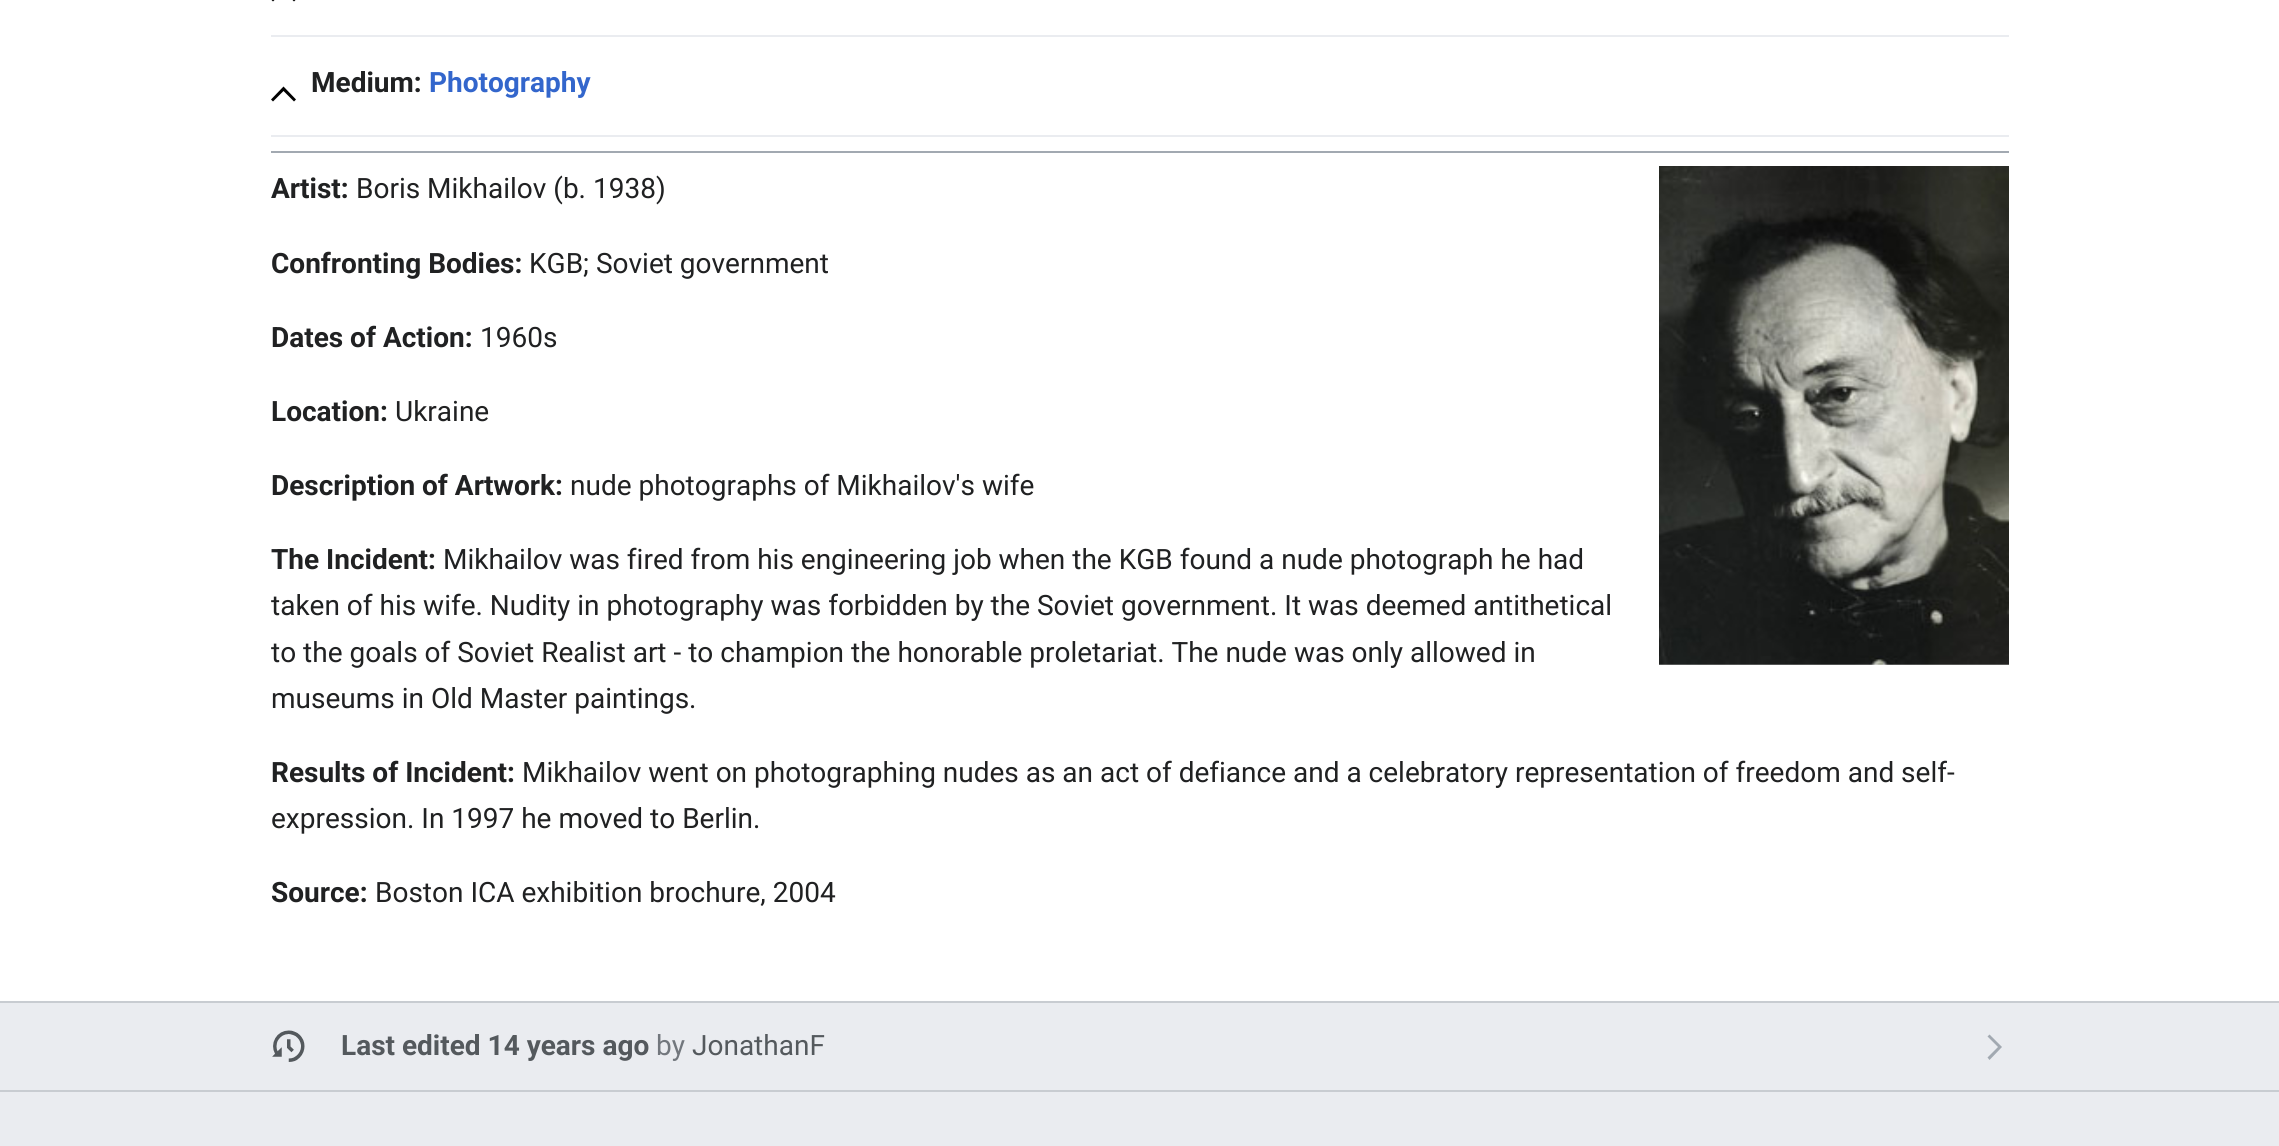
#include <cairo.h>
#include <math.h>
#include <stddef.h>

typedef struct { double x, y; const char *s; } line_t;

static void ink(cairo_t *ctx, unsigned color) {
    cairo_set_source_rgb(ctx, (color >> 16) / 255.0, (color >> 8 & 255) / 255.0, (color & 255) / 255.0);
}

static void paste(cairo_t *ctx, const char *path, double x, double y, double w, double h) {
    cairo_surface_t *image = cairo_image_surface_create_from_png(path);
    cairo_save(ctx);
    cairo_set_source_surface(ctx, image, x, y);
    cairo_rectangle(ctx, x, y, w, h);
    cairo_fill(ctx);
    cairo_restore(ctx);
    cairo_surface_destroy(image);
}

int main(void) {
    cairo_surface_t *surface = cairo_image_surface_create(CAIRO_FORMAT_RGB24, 2279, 1146);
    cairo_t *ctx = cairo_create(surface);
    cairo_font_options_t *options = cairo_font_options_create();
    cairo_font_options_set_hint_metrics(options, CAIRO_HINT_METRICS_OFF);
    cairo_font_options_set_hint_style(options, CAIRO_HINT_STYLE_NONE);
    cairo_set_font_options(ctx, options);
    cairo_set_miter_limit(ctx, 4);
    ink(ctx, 0xEAECF0);
    cairo_paint(ctx);
    ink(ctx, 0xFFFFFF);
    cairo_rectangle(ctx, 0, 0, 2279, 1001);
    cairo_fill(ctx);
    ink(ctx, 0xEAECF0);
    cairo_rectangle(ctx, 271, 35, 1738, 2);
    cairo_fill(ctx);
    ink(ctx, 0x000000);
    cairo_new_path(ctx);
    cairo_move_to(ctx, 294, 1.5);
    cairo_line_to(ctx, 283.5, -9);
    cairo_line_to(ctx, 273, 1.5);
    cairo_line_to(ctx, 271, -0.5);
    cairo_line_to(ctx, 283.5, -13);
    cairo_line_to(ctx, 296, -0.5);
    cairo_close_path(ctx);
    cairo_fill(ctx);
    ink(ctx, 0xEAECF0);
    cairo_rectangle(ctx, 271, 135, 1738, 2);
    cairo_fill(ctx);
    ink(ctx, 0x000000);
    cairo_new_path(ctx);
    cairo_move_to(ctx, 294, 101.5);
    cairo_line_to(ctx, 283.5, 91);
    cairo_line_to(ctx, 273, 101.5);
    cairo_line_to(ctx, 271, 99.5);
    cairo_line_to(ctx, 283.5, 86.5);
    cairo_line_to(ctx, 296, 99.5);
    cairo_close_path(ctx);
    cairo_fill(ctx);
    cairo_select_font_face(ctx, "Roboto", CAIRO_FONT_SLANT_NORMAL, CAIRO_FONT_WEIGHT_BOLD);
    cairo_set_font_size(ctx, 28);
    ink(ctx, 0x202122);
    cairo_move_to(ctx, 311, 92);
    cairo_show_text(ctx, "Medium:");
    ink(ctx, 0x3366CC);
    cairo_move_to(ctx, 429, 92);
    cairo_show_text(ctx, "Photography");
    ink(ctx, 0xA2A9B1);
    cairo_rectangle(ctx, 271, 151, 1738, 2);
    cairo_fill(ctx);
    ink(ctx, 0x202122);
    cairo_move_to(ctx, 271, 198);
    cairo_show_text(ctx, "Artist:");
    cairo_select_font_face(ctx, "Roboto", CAIRO_FONT_SLANT_NORMAL, CAIRO_FONT_WEIGHT_NORMAL);
    cairo_move_to(ctx, 356, 198);
    cairo_show_text(ctx, "Boris Mikhailov (b. 1938)");
    paste(ctx, "media/1.png", 1659, 166, 350, 499);
    cairo_select_font_face(ctx, "Roboto", CAIRO_FONT_SLANT_NORMAL, CAIRO_FONT_WEIGHT_BOLD);
    cairo_move_to(ctx, 271, 273);
    cairo_show_text(ctx, "Confronting Bodies:");
    cairo_select_font_face(ctx, "Roboto", CAIRO_FONT_SLANT_NORMAL, CAIRO_FONT_WEIGHT_NORMAL);
    cairo_move_to(ctx, 529, 273);
    cairo_show_text(ctx, "KGB; Soviet government");
    cairo_select_font_face(ctx, "Roboto", CAIRO_FONT_SLANT_NORMAL, CAIRO_FONT_WEIGHT_BOLD);
    cairo_move_to(ctx, 271, 347);
    cairo_show_text(ctx, "Dates of Action:");
    cairo_select_font_face(ctx, "Roboto", CAIRO_FONT_SLANT_NORMAL, CAIRO_FONT_WEIGHT_NORMAL);
    cairo_move_to(ctx, 480, 347);
    cairo_show_text(ctx, "1960s");
    cairo_select_font_face(ctx, "Roboto", CAIRO_FONT_SLANT_NORMAL, CAIRO_FONT_WEIGHT_BOLD);
    cairo_move_to(ctx, 271, 421);
    cairo_show_text(ctx, "Location:");
    cairo_select_font_face(ctx, "Roboto", CAIRO_FONT_SLANT_NORMAL, CAIRO_FONT_WEIGHT_NORMAL);
    cairo_move_to(ctx, 395, 421);
    cairo_show_text(ctx, "Ukraine");
    cairo_select_font_face(ctx, "Roboto", CAIRO_FONT_SLANT_NORMAL, CAIRO_FONT_WEIGHT_BOLD);
    cairo_move_to(ctx, 271, 495);
    cairo_show_text(ctx, "Description of Artwork:");
    cairo_select_font_face(ctx, "Roboto", CAIRO_FONT_SLANT_NORMAL, CAIRO_FONT_WEIGHT_NORMAL);
    cairo_move_to(ctx, 570, 495);
    cairo_show_text(ctx, "nude photographs of Mikhailov's wife");
    cairo_select_font_face(ctx, "Roboto", CAIRO_FONT_SLANT_NORMAL, CAIRO_FONT_WEIGHT_BOLD);
    cairo_move_to(ctx, 271, 569);
    cairo_show_text(ctx, "The Incident:");
    cairo_select_font_face(ctx, "Roboto", CAIRO_FONT_SLANT_NORMAL, CAIRO_FONT_WEIGHT_NORMAL);
    {
        static const line_t items[] = {
            {443, 569, "Mikhailov was fired from his engineering job when the KGB found a nude photograph he had"},
            {271, 615, "taken of his wife. Nudity in photography was forbidden by the Soviet government. It was deemed antithetical"},
            {271, 662, "to the goals of Soviet Realist art - to champion the honorable proletariat. The nude was only allowed in"},
            {271, 708, "museums in Old Master paintings."},
        };
        for (size_t i = 0; i < sizeof items / sizeof *items; i++) {
            cairo_move_to(ctx, items[i].x, items[i].y);
            cairo_show_text(ctx, items[i].s);
        }
    }
    cairo_select_font_face(ctx, "Roboto", CAIRO_FONT_SLANT_NORMAL, CAIRO_FONT_WEIGHT_BOLD);
    cairo_move_to(ctx, 271, 782);
    cairo_show_text(ctx, "Results of Incident:");
    cairo_select_font_face(ctx, "Roboto", CAIRO_FONT_SLANT_NORMAL, CAIRO_FONT_WEIGHT_NORMAL);
    cairo_move_to(ctx, 522, 782);
    cairo_show_text(ctx, "Mikhailov went on photographing nudes as an act of defiance and a celebratory representation of freedom and self-");
    cairo_move_to(ctx, 271, 828);
    cairo_show_text(ctx, "expression. In 1997 he moved to Berlin.");
    cairo_select_font_face(ctx, "Roboto", CAIRO_FONT_SLANT_NORMAL, CAIRO_FONT_WEIGHT_BOLD);
    cairo_move_to(ctx, 271, 902);
    cairo_show_text(ctx, "Source:");
    cairo_select_font_face(ctx, "Roboto", CAIRO_FONT_SLANT_NORMAL, CAIRO_FONT_WEIGHT_NORMAL);
    cairo_move_to(ctx, 375, 902);
    cairo_show_text(ctx, "Boston ICA exhibition brochure, 2004");
    ink(ctx, 0xC8CCD1);
    cairo_rectangle(ctx, 0, 1001, 2279, 2);
    cairo_fill(ctx);
    cairo_rectangle(ctx, 0, 1090, 2279, 2);
    cairo_fill(ctx);
    paste(ctx, "media/2.png", 272, 1030, 33, 32);
    cairo_select_font_face(ctx, "Roboto", CAIRO_FONT_SLANT_NORMAL, CAIRO_FONT_WEIGHT_BOLD);
    ink(ctx, 0x54595D);
    cairo_move_to(ctx, 341, 1055);
    cairo_show_text(ctx, "Last edited 14 years ago");
    cairo_select_font_face(ctx, "Roboto", CAIRO_FONT_SLANT_NORMAL, CAIRO_FONT_WEIGHT_NORMAL);
    ink(ctx, 0x72777D);
    cairo_move_to(ctx, 656, 1055);
    cairo_show_text(ctx, "by");
    ink(ctx, 0x54595D);
    cairo_move_to(ctx, 692, 1055);
    cairo_show_text(ctx, "JonathanF");
    ink(ctx, 0xA2A9B1);
    cairo_new_path(ctx);
    cairo_move_to(ctx, 1987.5, 1036.5);
    cairo_line_to(ctx, 1998, 1047);
    cairo_line_to(ctx, 1987.5, 1057.5);
    cairo_line_to(ctx, 1989.5, 1060);
    cairo_line_to(ctx, 2002, 1047);
    cairo_line_to(ctx, 1989.5, 1034.5);
    cairo_close_path(ctx);
    cairo_fill(ctx);
    cairo_surface_write_to_png(surface, "image.png");
    cairo_font_options_destroy(options);
    cairo_destroy(ctx);
    cairo_surface_destroy(surface);
    return 0;
}
